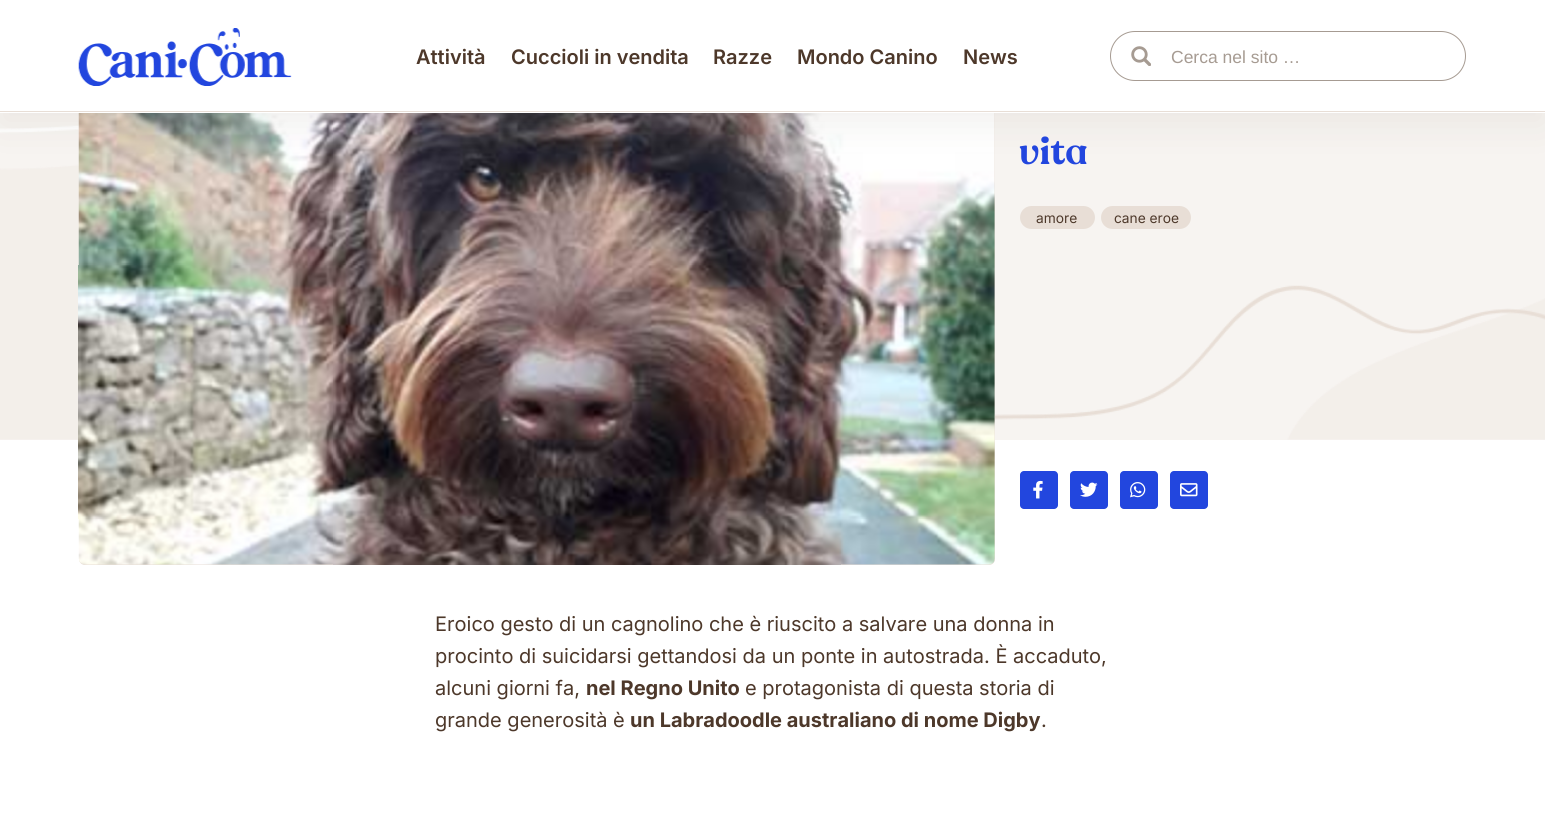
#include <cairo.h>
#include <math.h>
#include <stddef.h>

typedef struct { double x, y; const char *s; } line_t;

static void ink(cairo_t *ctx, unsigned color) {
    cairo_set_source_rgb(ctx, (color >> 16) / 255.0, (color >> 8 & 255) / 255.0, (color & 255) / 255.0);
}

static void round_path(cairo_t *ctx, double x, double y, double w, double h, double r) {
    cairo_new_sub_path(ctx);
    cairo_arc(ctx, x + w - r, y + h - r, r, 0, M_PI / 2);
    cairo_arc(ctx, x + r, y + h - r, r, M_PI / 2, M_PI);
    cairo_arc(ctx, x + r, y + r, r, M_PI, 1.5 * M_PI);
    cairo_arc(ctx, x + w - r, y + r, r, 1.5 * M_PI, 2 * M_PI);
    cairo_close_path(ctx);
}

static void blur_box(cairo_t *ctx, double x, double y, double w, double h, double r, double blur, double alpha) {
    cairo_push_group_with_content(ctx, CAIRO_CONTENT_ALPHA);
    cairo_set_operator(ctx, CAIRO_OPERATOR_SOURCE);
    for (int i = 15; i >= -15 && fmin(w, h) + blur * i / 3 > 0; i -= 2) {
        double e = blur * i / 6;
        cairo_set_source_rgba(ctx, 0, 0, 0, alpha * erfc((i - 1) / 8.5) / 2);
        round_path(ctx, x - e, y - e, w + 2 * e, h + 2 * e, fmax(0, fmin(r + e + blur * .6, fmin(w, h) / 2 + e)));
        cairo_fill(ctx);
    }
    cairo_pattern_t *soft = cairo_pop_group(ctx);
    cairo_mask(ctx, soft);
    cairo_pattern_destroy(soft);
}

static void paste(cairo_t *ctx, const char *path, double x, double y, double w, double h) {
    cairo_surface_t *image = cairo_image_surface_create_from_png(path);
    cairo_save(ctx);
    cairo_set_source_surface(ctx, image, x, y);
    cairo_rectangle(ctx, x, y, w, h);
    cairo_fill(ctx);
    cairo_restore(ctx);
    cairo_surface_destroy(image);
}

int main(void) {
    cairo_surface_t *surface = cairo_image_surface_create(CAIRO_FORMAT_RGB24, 1545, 837);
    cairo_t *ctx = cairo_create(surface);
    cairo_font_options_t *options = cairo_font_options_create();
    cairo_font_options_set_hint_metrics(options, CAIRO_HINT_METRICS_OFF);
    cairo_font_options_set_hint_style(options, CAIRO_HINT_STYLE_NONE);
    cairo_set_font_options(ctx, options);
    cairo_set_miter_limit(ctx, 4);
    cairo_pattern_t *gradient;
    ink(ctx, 0xFFFFFF);
    cairo_paint(ctx);
    gradient = cairo_pattern_create_linear(773, -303, 773, 440);
    cairo_pattern_add_color_stop_rgba(gradient, 0, 0.992, 0.992, 0.992, 1);
    cairo_pattern_add_color_stop_rgba(gradient, 0.5, 0.969, 0.957, 0.945, 1);
    cairo_pattern_add_color_stop_rgba(gradient, 1, 0.969, 0.957, 0.945, 1);
    cairo_set_source(ctx, gradient);
    cairo_pattern_destroy(gradient);
    cairo_rectangle(ctx, 0, 113, 1545, 327);
    cairo_fill(ctx);
    paste(ctx, "media/3.png", 0, 124, 1545, 316);
    ink(ctx, 0xE8DED6);
    round_path(ctx, 79, 10, 916, 555, 6);
    cairo_fill(ctx);
    paste(ctx, "media/4.png", 78, 113, 917, 452);
    ink(ctx, 0xA69B92);
    blur_box(ctx, 0, 13, 1545, 112, 0, 19, 0.15);
    ink(ctx, 0xFFFFFF);
    cairo_rectangle(ctx, 0, 0, 1545, 113);
    cairo_fill(ctx);
    ink(ctx, 0xE8DED6);
    cairo_rectangle(ctx, 0, 111, 1545, 1);
    cairo_fill(ctx);
    paste(ctx, "media/1.png", 78, 28, 214, 58);
    cairo_select_font_face(ctx, "Inter SemiBold", CAIRO_FONT_SLANT_NORMAL, CAIRO_FONT_WEIGHT_NORMAL);
    cairo_set_font_size(ctx, 20);
    ink(ctx, 0x4D382A);
    {
        static const line_t items[] = {
            {416, 64, "Attività"},
            {511, 64, "Cuccioli in vendita"},
            {713, 64, "Razze"},
            {797, 64, "Mondo Canino"},
            {963, 64, "News"},
        };
        for (size_t i = 0; i < sizeof items / sizeof *items; i++) {
            cairo_move_to(ctx, items[i].x, items[i].y);
            cairo_show_text(ctx, items[i].s);
        }
    }
    paste(ctx, "media/2.png", 1131, 46, 20, 20);
    round_path(ctx, 1110.5, 31.5, 355, 49, 24.5);
    ink(ctx, 0xA69B92);
    cairo_set_line_width(ctx, 1);
    cairo_stroke(ctx);
    cairo_select_font_face(ctx, "Liberation Sans", CAIRO_FONT_SLANT_NORMAL, CAIRO_FONT_WEIGHT_NORMAL);
    cairo_set_font_size(ctx, 17.5);
    cairo_move_to(ctx, 1171, 63);
    cairo_show_text(ctx, "Cerca nel sito …");
    cairo_select_font_face(ctx, "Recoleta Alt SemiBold", CAIRO_FONT_SLANT_NORMAL, CAIRO_FONT_WEIGHT_NORMAL);
    cairo_set_font_size(ctx, 38);
    ink(ctx, 0x2246DE);
    cairo_move_to(ctx, 1019, 164);
    cairo_show_text(ctx, "vita");
    ink(ctx, 0xE8DED6);
    round_path(ctx, 1020, 206, 75, 23, 11.5);
    cairo_fill(ctx);
    cairo_select_font_face(ctx, "Inter", CAIRO_FONT_SLANT_NORMAL, CAIRO_FONT_WEIGHT_NORMAL);
    cairo_set_font_size(ctx, 13.75);
    ink(ctx, 0x4D382A);
    cairo_move_to(ctx, 1036, 223);
    cairo_show_text(ctx, "amore");
    ink(ctx, 0xE8DED6);
    round_path(ctx, 1101, 206, 90, 23, 11.5);
    cairo_fill(ctx);
    ink(ctx, 0x4D382A);
    cairo_move_to(ctx, 1114, 223);
    cairo_show_text(ctx, "cane eroe");
    ink(ctx, 0x2246DE);
    round_path(ctx, 1020, 471, 38, 38, 4);
    cairo_fill(ctx);
    paste(ctx, "media/5.png", 1033, 480, 10, 19);
    round_path(ctx, 1070, 471, 38, 38, 4);
    cairo_fill(ctx);
    paste(ctx, "media/6.png", 1080, 482, 18, 15);
    round_path(ctx, 1120, 471, 38, 38, 4);
    cairo_fill(ctx);
    paste(ctx, "media/7.png", 1130, 482, 16, 16);
    round_path(ctx, 1170, 471, 38, 38, 4);
    cairo_fill(ctx);
    paste(ctx, "media/8.png", 1180, 483, 18, 14);
    cairo_set_font_size(ctx, 20);
    ink(ctx, 0x4D382A);
    {
        static const line_t items[] = {
            {435, 631, "Eroico gesto di un cagnolino che è riuscito a salvare una donna in"},
            {435, 663, "procinto di suicidarsi gettandosi da un ponte in autostrada. È accaduto,"},
            {435, 695, "alcuni giorni fa,"},
        };
        for (size_t i = 0; i < sizeof items / sizeof *items; i++) {
            cairo_move_to(ctx, items[i].x, items[i].y);
            cairo_show_text(ctx, items[i].s);
        }
    }
    cairo_select_font_face(ctx, "Inter", CAIRO_FONT_SLANT_NORMAL, CAIRO_FONT_WEIGHT_BOLD);
    cairo_move_to(ctx, 586, 695);
    cairo_show_text(ctx, "nel Regno Unito");
    cairo_select_font_face(ctx, "Inter", CAIRO_FONT_SLANT_NORMAL, CAIRO_FONT_WEIGHT_NORMAL);
    cairo_move_to(ctx, 745, 695);
    cairo_show_text(ctx, "e protagonista di questa storia di");
    cairo_move_to(ctx, 435, 727);
    cairo_show_text(ctx, "grande generosità è");
    cairo_select_font_face(ctx, "Inter", CAIRO_FONT_SLANT_NORMAL, CAIRO_FONT_WEIGHT_BOLD);
    cairo_move_to(ctx, 630, 727);
    cairo_show_text(ctx, "un Labradoodle australiano di nome Digby");
    cairo_select_font_face(ctx, "Inter", CAIRO_FONT_SLANT_NORMAL, CAIRO_FONT_WEIGHT_NORMAL);
    cairo_move_to(ctx, 1041, 727);
    cairo_show_text(ctx, ".");
    cairo_surface_write_to_png(surface, "image.png");
    cairo_font_options_destroy(options);
    cairo_destroy(ctx);
    cairo_surface_destroy(surface);
    return 0;
}
